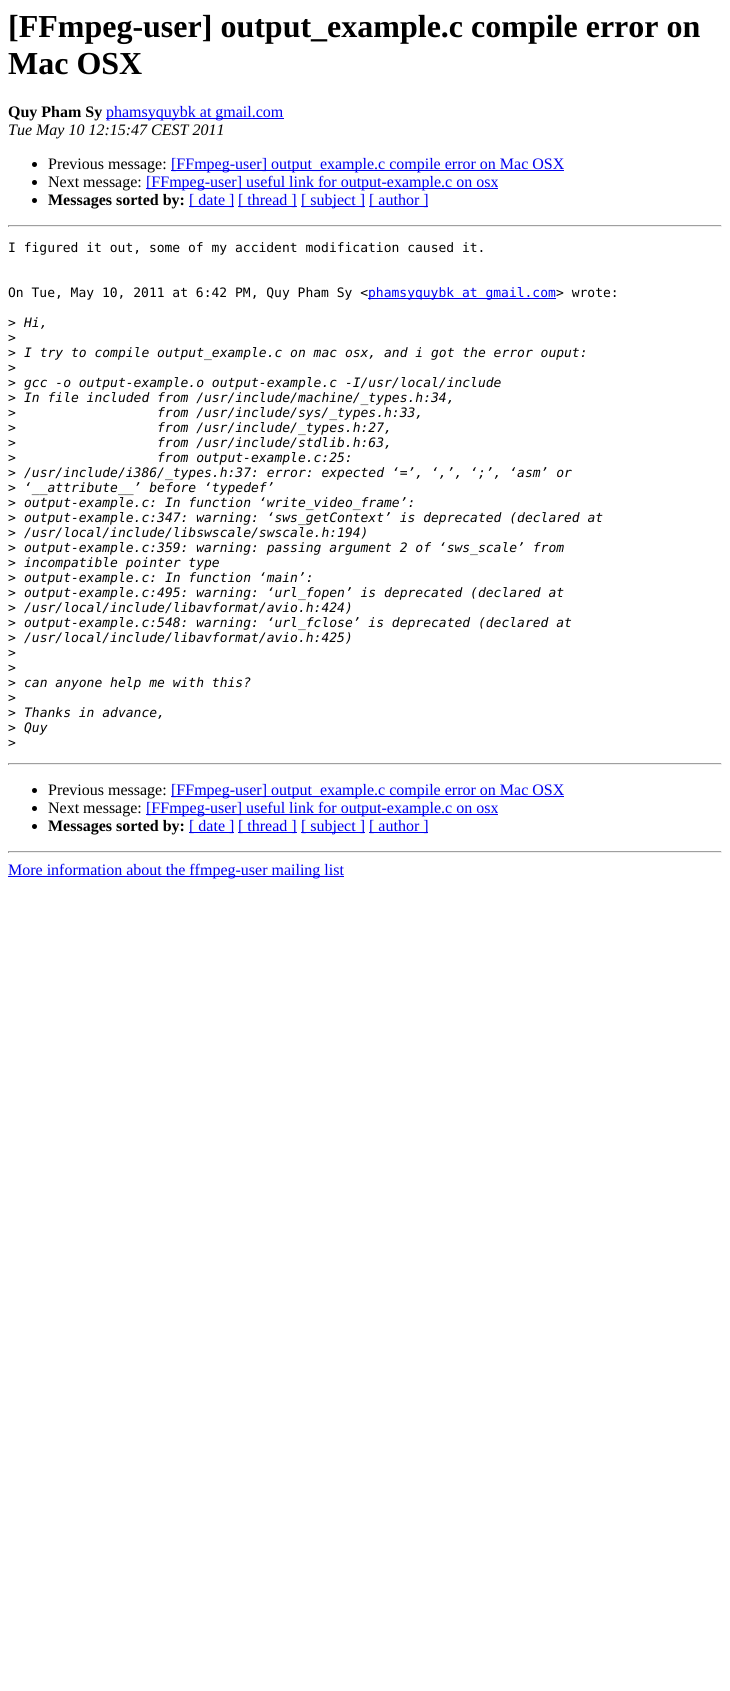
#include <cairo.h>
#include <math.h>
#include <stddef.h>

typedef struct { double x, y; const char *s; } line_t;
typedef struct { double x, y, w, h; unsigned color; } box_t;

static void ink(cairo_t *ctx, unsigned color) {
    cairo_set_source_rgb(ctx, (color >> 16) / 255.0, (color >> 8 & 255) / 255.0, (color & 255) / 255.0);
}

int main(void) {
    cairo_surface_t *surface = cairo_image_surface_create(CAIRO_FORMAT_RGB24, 730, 1691);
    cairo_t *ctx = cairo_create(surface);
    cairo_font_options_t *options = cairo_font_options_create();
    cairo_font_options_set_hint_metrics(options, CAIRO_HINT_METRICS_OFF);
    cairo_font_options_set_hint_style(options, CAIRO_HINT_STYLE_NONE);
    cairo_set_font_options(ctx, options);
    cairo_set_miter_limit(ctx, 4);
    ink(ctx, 0xFFFFFF);
    cairo_paint(ctx);
    cairo_select_font_face(ctx, "Liberation Serif", CAIRO_FONT_SLANT_NORMAL, CAIRO_FONT_WEIGHT_BOLD);
    cairo_set_font_size(ctx, 32);
    ink(ctx, 0x000000);
    cairo_move_to(ctx, 8, 37);
    cairo_show_text(ctx, "[FFmpeg-user] output_example.c compile error on");
    cairo_move_to(ctx, 8, 74);
    cairo_show_text(ctx, "Mac OSX");
    cairo_set_font_size(ctx, 16);
    cairo_move_to(ctx, 8, 117);
    cairo_show_text(ctx, "Quy Pham Sy");
    ink(ctx, 0x0000EE);
    cairo_rectangle(ctx, 106, 118, 178, 1);
    cairo_fill(ctx);
    cairo_select_font_face(ctx, "Liberation Serif", CAIRO_FONT_SLANT_NORMAL, CAIRO_FONT_WEIGHT_NORMAL);
    cairo_move_to(ctx, 106, 117);
    cairo_show_text(ctx, "phamsyquybk at gmail.com");
    cairo_select_font_face(ctx, "Liberation Serif", CAIRO_FONT_SLANT_ITALIC, CAIRO_FONT_WEIGHT_NORMAL);
    ink(ctx, 0x000000);
    cairo_move_to(ctx, 8, 135);
    cairo_show_text(ctx, "Tue May 10 12:15:47 CEST 2011");
    cairo_new_path(ctx);
    cairo_arc(ctx, 34.5, 164.5, 2.5, 0, 2 * M_PI);
    cairo_fill(ctx);
    cairo_select_font_face(ctx, "Liberation Serif", CAIRO_FONT_SLANT_NORMAL, CAIRO_FONT_WEIGHT_NORMAL);
    cairo_move_to(ctx, 48, 169);
    cairo_show_text(ctx, "Previous message:");
    ink(ctx, 0x0000EE);
    cairo_rectangle(ctx, 171, 170, 393, 1);
    cairo_fill(ctx);
    cairo_move_to(ctx, 171, 169);
    cairo_show_text(ctx, "[FFmpeg-user] output_example.c compile error on Mac OSX");
    ink(ctx, 0x000000);
    cairo_new_path(ctx);
    cairo_arc(ctx, 34.5, 182.5, 2.5, 0, 2 * M_PI);
    cairo_fill(ctx);
    cairo_move_to(ctx, 48, 187);
    cairo_show_text(ctx, "Next message:");
    ink(ctx, 0x0000EE);
    cairo_rectangle(ctx, 146, 188, 352, 1);
    cairo_fill(ctx);
    cairo_move_to(ctx, 146, 187);
    cairo_show_text(ctx, "[FFmpeg-user] useful link for output-example.c on osx");
    ink(ctx, 0x000000);
    cairo_new_path(ctx);
    cairo_arc(ctx, 34.5, 200.5, 2.5, 0, 2 * M_PI);
    cairo_fill(ctx);
    cairo_select_font_face(ctx, "Liberation Serif", CAIRO_FONT_SLANT_NORMAL, CAIRO_FONT_WEIGHT_BOLD);
    cairo_move_to(ctx, 48, 205);
    cairo_show_text(ctx, "Messages sorted by:");
    ink(ctx, 0x0000EE);
    cairo_rectangle(ctx, 189, 206, 45, 1);
    cairo_fill(ctx);
    cairo_select_font_face(ctx, "Liberation Serif", CAIRO_FONT_SLANT_NORMAL, CAIRO_FONT_WEIGHT_NORMAL);
    cairo_move_to(ctx, 189, 205);
    cairo_show_text(ctx, "[ date ]");
    cairo_rectangle(ctx, 238, 206, 59, 1);
    cairo_fill(ctx);
    cairo_move_to(ctx, 238, 205);
    cairo_show_text(ctx, "[ thread ]");
    cairo_rectangle(ctx, 301, 206, 64, 1);
    cairo_fill(ctx);
    cairo_move_to(ctx, 301, 205);
    cairo_show_text(ctx, "[ subject ]");
    cairo_rectangle(ctx, 369, 206, 59, 1);
    cairo_fill(ctx);
    cairo_move_to(ctx, 369, 205);
    cairo_show_text(ctx, "[ author ]");
    {
        static const box_t items[] = {
            {8, 225, 714, 1, 0x9F9F9F},
            {721, 225, 1, 2, 0xEEEEEE},
            {8, 226, 714, 1, 0xEEEEEE},
            {8, 225, 1, 2, 0x9F9F9F},
        };
        for (size_t i = 0; i < sizeof items / sizeof *items; i++) {
            ink(ctx, items[i].color);
            cairo_rectangle(ctx, items[i].x, items[i].y, items[i].w, items[i].h);
            cairo_fill(ctx);
        }
    }
    cairo_select_font_face(ctx, "DejaVu Sans Mono", CAIRO_FONT_SLANT_NORMAL, CAIRO_FONT_WEIGHT_NORMAL);
    cairo_set_font_size(ctx, 13);
    ink(ctx, 0x000000);
    cairo_move_to(ctx, 8, 252);
    cairo_show_text(ctx, "I figured it out, some of my accident modification caused it.");
    cairo_move_to(ctx, 8, 297);
    cairo_show_text(ctx, "On Tue, May 10, 2011 at 6:42 PM, Quy Pham Sy <");
    ink(ctx, 0x0000EE);
    cairo_rectangle(ctx, 368, 298, 188, 1);
    cairo_fill(ctx);
    cairo_move_to(ctx, 368, 297);
    cairo_show_text(ctx, "phamsyquybk at gmail.com");
    ink(ctx, 0x000000);
    cairo_move_to(ctx, 556, 297);
    cairo_show_text(ctx, "> wrote:");
    cairo_move_to(ctx, 8, 327);
    cairo_show_text(ctx, ">");
    cairo_select_font_face(ctx, "DejaVu Sans Mono", CAIRO_FONT_SLANT_ITALIC, CAIRO_FONT_WEIGHT_NORMAL);
    cairo_move_to(ctx, 24, 327);
    cairo_show_text(ctx, "Hi,");
    cairo_select_font_face(ctx, "DejaVu Sans Mono", CAIRO_FONT_SLANT_NORMAL, CAIRO_FONT_WEIGHT_NORMAL);
    cairo_move_to(ctx, 8, 342);
    cairo_show_text(ctx, ">");
    cairo_move_to(ctx, 8, 357);
    cairo_show_text(ctx, ">");
    cairo_select_font_face(ctx, "DejaVu Sans Mono", CAIRO_FONT_SLANT_ITALIC, CAIRO_FONT_WEIGHT_NORMAL);
    cairo_move_to(ctx, 24, 357);
    cairo_show_text(ctx, "I try to compile output_example.c on mac osx, and i got the error ouput:");
    cairo_select_font_face(ctx, "DejaVu Sans Mono", CAIRO_FONT_SLANT_NORMAL, CAIRO_FONT_WEIGHT_NORMAL);
    cairo_move_to(ctx, 8, 372);
    cairo_show_text(ctx, ">");
    cairo_move_to(ctx, 8, 387);
    cairo_show_text(ctx, ">");
    cairo_select_font_face(ctx, "DejaVu Sans Mono", CAIRO_FONT_SLANT_ITALIC, CAIRO_FONT_WEIGHT_NORMAL);
    cairo_move_to(ctx, 24, 387);
    cairo_show_text(ctx, "gcc -o output-example.o output-example.c -I/usr/local/include");
    cairo_select_font_face(ctx, "DejaVu Sans Mono", CAIRO_FONT_SLANT_NORMAL, CAIRO_FONT_WEIGHT_NORMAL);
    cairo_move_to(ctx, 8, 402);
    cairo_show_text(ctx, ">");
    cairo_select_font_face(ctx, "DejaVu Sans Mono", CAIRO_FONT_SLANT_ITALIC, CAIRO_FONT_WEIGHT_NORMAL);
    cairo_move_to(ctx, 24, 402);
    cairo_show_text(ctx, "In file included from /usr/include/machine/_types.h:34,");
    cairo_select_font_face(ctx, "DejaVu Sans Mono", CAIRO_FONT_SLANT_NORMAL, CAIRO_FONT_WEIGHT_NORMAL);
    cairo_move_to(ctx, 8, 417);
    cairo_show_text(ctx, ">");
    cairo_select_font_face(ctx, "DejaVu Sans Mono", CAIRO_FONT_SLANT_ITALIC, CAIRO_FONT_WEIGHT_NORMAL);
    cairo_move_to(ctx, 157, 417);
    cairo_show_text(ctx, "from /usr/include/sys/_types.h:33,");
    cairo_select_font_face(ctx, "DejaVu Sans Mono", CAIRO_FONT_SLANT_NORMAL, CAIRO_FONT_WEIGHT_NORMAL);
    cairo_move_to(ctx, 8, 432);
    cairo_show_text(ctx, ">");
    cairo_select_font_face(ctx, "DejaVu Sans Mono", CAIRO_FONT_SLANT_ITALIC, CAIRO_FONT_WEIGHT_NORMAL);
    cairo_move_to(ctx, 157, 432);
    cairo_show_text(ctx, "from /usr/include/_types.h:27,");
    cairo_select_font_face(ctx, "DejaVu Sans Mono", CAIRO_FONT_SLANT_NORMAL, CAIRO_FONT_WEIGHT_NORMAL);
    cairo_move_to(ctx, 8, 447);
    cairo_show_text(ctx, ">");
    cairo_select_font_face(ctx, "DejaVu Sans Mono", CAIRO_FONT_SLANT_ITALIC, CAIRO_FONT_WEIGHT_NORMAL);
    cairo_move_to(ctx, 157, 447);
    cairo_show_text(ctx, "from /usr/include/stdlib.h:63,");
    cairo_select_font_face(ctx, "DejaVu Sans Mono", CAIRO_FONT_SLANT_NORMAL, CAIRO_FONT_WEIGHT_NORMAL);
    cairo_move_to(ctx, 8, 462);
    cairo_show_text(ctx, ">");
    cairo_select_font_face(ctx, "DejaVu Sans Mono", CAIRO_FONT_SLANT_ITALIC, CAIRO_FONT_WEIGHT_NORMAL);
    cairo_move_to(ctx, 157, 462);
    cairo_show_text(ctx, "from output-example.c:25:");
    cairo_select_font_face(ctx, "DejaVu Sans Mono", CAIRO_FONT_SLANT_NORMAL, CAIRO_FONT_WEIGHT_NORMAL);
    cairo_move_to(ctx, 8, 477);
    cairo_show_text(ctx, ">");
    cairo_select_font_face(ctx, "DejaVu Sans Mono", CAIRO_FONT_SLANT_ITALIC, CAIRO_FONT_WEIGHT_NORMAL);
    cairo_move_to(ctx, 24, 477);
    cairo_show_text(ctx, "/usr/include/i386/_types.h:37: error: expected ‘=’, ‘,’, ‘;’, ‘asm’ or");
    cairo_select_font_face(ctx, "DejaVu Sans Mono", CAIRO_FONT_SLANT_NORMAL, CAIRO_FONT_WEIGHT_NORMAL);
    cairo_move_to(ctx, 8, 492);
    cairo_show_text(ctx, ">");
    cairo_select_font_face(ctx, "DejaVu Sans Mono", CAIRO_FONT_SLANT_ITALIC, CAIRO_FONT_WEIGHT_NORMAL);
    cairo_move_to(ctx, 24, 492);
    cairo_show_text(ctx, "‘__attribute__’ before ‘typedef’");
    cairo_select_font_face(ctx, "DejaVu Sans Mono", CAIRO_FONT_SLANT_NORMAL, CAIRO_FONT_WEIGHT_NORMAL);
    cairo_move_to(ctx, 8, 507);
    cairo_show_text(ctx, ">");
    cairo_select_font_face(ctx, "DejaVu Sans Mono", CAIRO_FONT_SLANT_ITALIC, CAIRO_FONT_WEIGHT_NORMAL);
    cairo_move_to(ctx, 24, 507);
    cairo_show_text(ctx, "output-example.c: In function ‘write_video_frame’:");
    cairo_select_font_face(ctx, "DejaVu Sans Mono", CAIRO_FONT_SLANT_NORMAL, CAIRO_FONT_WEIGHT_NORMAL);
    cairo_move_to(ctx, 8, 522);
    cairo_show_text(ctx, ">");
    cairo_select_font_face(ctx, "DejaVu Sans Mono", CAIRO_FONT_SLANT_ITALIC, CAIRO_FONT_WEIGHT_NORMAL);
    cairo_move_to(ctx, 24, 522);
    cairo_show_text(ctx, "output-example.c:347: warning: ‘sws_getContext’ is deprecated (declared at");
    cairo_select_font_face(ctx, "DejaVu Sans Mono", CAIRO_FONT_SLANT_NORMAL, CAIRO_FONT_WEIGHT_NORMAL);
    cairo_move_to(ctx, 8, 537);
    cairo_show_text(ctx, ">");
    cairo_select_font_face(ctx, "DejaVu Sans Mono", CAIRO_FONT_SLANT_ITALIC, CAIRO_FONT_WEIGHT_NORMAL);
    cairo_move_to(ctx, 24, 537);
    cairo_show_text(ctx, "/usr/local/include/libswscale/swscale.h:194)");
    cairo_select_font_face(ctx, "DejaVu Sans Mono", CAIRO_FONT_SLANT_NORMAL, CAIRO_FONT_WEIGHT_NORMAL);
    cairo_move_to(ctx, 8, 552);
    cairo_show_text(ctx, ">");
    cairo_select_font_face(ctx, "DejaVu Sans Mono", CAIRO_FONT_SLANT_ITALIC, CAIRO_FONT_WEIGHT_NORMAL);
    cairo_move_to(ctx, 24, 552);
    cairo_show_text(ctx, "output-example.c:359: warning: passing argument 2 of ‘sws_scale’ from");
    cairo_select_font_face(ctx, "DejaVu Sans Mono", CAIRO_FONT_SLANT_NORMAL, CAIRO_FONT_WEIGHT_NORMAL);
    cairo_move_to(ctx, 8, 567);
    cairo_show_text(ctx, ">");
    cairo_select_font_face(ctx, "DejaVu Sans Mono", CAIRO_FONT_SLANT_ITALIC, CAIRO_FONT_WEIGHT_NORMAL);
    cairo_move_to(ctx, 24, 567);
    cairo_show_text(ctx, "incompatible pointer type");
    cairo_select_font_face(ctx, "DejaVu Sans Mono", CAIRO_FONT_SLANT_NORMAL, CAIRO_FONT_WEIGHT_NORMAL);
    cairo_move_to(ctx, 8, 582);
    cairo_show_text(ctx, ">");
    cairo_select_font_face(ctx, "DejaVu Sans Mono", CAIRO_FONT_SLANT_ITALIC, CAIRO_FONT_WEIGHT_NORMAL);
    cairo_move_to(ctx, 24, 582);
    cairo_show_text(ctx, "output-example.c: In function ‘main’:");
    cairo_select_font_face(ctx, "DejaVu Sans Mono", CAIRO_FONT_SLANT_NORMAL, CAIRO_FONT_WEIGHT_NORMAL);
    cairo_move_to(ctx, 8, 597);
    cairo_show_text(ctx, ">");
    cairo_select_font_face(ctx, "DejaVu Sans Mono", CAIRO_FONT_SLANT_ITALIC, CAIRO_FONT_WEIGHT_NORMAL);
    cairo_move_to(ctx, 24, 597);
    cairo_show_text(ctx, "output-example.c:495: warning: ‘url_fopen’ is deprecated (declared at");
    cairo_select_font_face(ctx, "DejaVu Sans Mono", CAIRO_FONT_SLANT_NORMAL, CAIRO_FONT_WEIGHT_NORMAL);
    cairo_move_to(ctx, 8, 612);
    cairo_show_text(ctx, ">");
    cairo_select_font_face(ctx, "DejaVu Sans Mono", CAIRO_FONT_SLANT_ITALIC, CAIRO_FONT_WEIGHT_NORMAL);
    cairo_move_to(ctx, 24, 612);
    cairo_show_text(ctx, "/usr/local/include/libavformat/avio.h:424)");
    cairo_select_font_face(ctx, "DejaVu Sans Mono", CAIRO_FONT_SLANT_NORMAL, CAIRO_FONT_WEIGHT_NORMAL);
    cairo_move_to(ctx, 8, 627);
    cairo_show_text(ctx, ">");
    cairo_select_font_face(ctx, "DejaVu Sans Mono", CAIRO_FONT_SLANT_ITALIC, CAIRO_FONT_WEIGHT_NORMAL);
    cairo_move_to(ctx, 24, 627);
    cairo_show_text(ctx, "output-example.c:548: warning: ‘url_fclose’ is deprecated (declared at");
    cairo_select_font_face(ctx, "DejaVu Sans Mono", CAIRO_FONT_SLANT_NORMAL, CAIRO_FONT_WEIGHT_NORMAL);
    cairo_move_to(ctx, 8, 642);
    cairo_show_text(ctx, ">");
    cairo_select_font_face(ctx, "DejaVu Sans Mono", CAIRO_FONT_SLANT_ITALIC, CAIRO_FONT_WEIGHT_NORMAL);
    cairo_move_to(ctx, 24, 642);
    cairo_show_text(ctx, "/usr/local/include/libavformat/avio.h:425)");
    cairo_select_font_face(ctx, "DejaVu Sans Mono", CAIRO_FONT_SLANT_NORMAL, CAIRO_FONT_WEIGHT_NORMAL);
    {
        static const line_t items[] = {
            {8, 657, ">"},
            {8, 672, ">"},
            {8, 687, ">"},
        };
        for (size_t i = 0; i < sizeof items / sizeof *items; i++) {
            cairo_move_to(ctx, items[i].x, items[i].y);
            cairo_show_text(ctx, items[i].s);
        }
    }
    cairo_select_font_face(ctx, "DejaVu Sans Mono", CAIRO_FONT_SLANT_ITALIC, CAIRO_FONT_WEIGHT_NORMAL);
    cairo_move_to(ctx, 24, 687);
    cairo_show_text(ctx, "can anyone help me with this?");
    cairo_select_font_face(ctx, "DejaVu Sans Mono", CAIRO_FONT_SLANT_NORMAL, CAIRO_FONT_WEIGHT_NORMAL);
    cairo_move_to(ctx, 8, 702);
    cairo_show_text(ctx, ">");
    cairo_move_to(ctx, 8, 717);
    cairo_show_text(ctx, ">");
    cairo_select_font_face(ctx, "DejaVu Sans Mono", CAIRO_FONT_SLANT_ITALIC, CAIRO_FONT_WEIGHT_NORMAL);
    cairo_move_to(ctx, 24, 717);
    cairo_show_text(ctx, "Thanks in advance,");
    cairo_select_font_face(ctx, "DejaVu Sans Mono", CAIRO_FONT_SLANT_NORMAL, CAIRO_FONT_WEIGHT_NORMAL);
    cairo_move_to(ctx, 8, 732);
    cairo_show_text(ctx, ">");
    cairo_select_font_face(ctx, "DejaVu Sans Mono", CAIRO_FONT_SLANT_ITALIC, CAIRO_FONT_WEIGHT_NORMAL);
    cairo_move_to(ctx, 24, 732);
    cairo_show_text(ctx, "Quy");
    cairo_select_font_face(ctx, "DejaVu Sans Mono", CAIRO_FONT_SLANT_NORMAL, CAIRO_FONT_WEIGHT_NORMAL);
    cairo_move_to(ctx, 8, 747);
    cairo_show_text(ctx, ">");
    {
        static const box_t items[] = {
            {8, 763, 714, 1, 0x9F9F9F},
            {721, 763, 1, 2, 0xEEEEEE},
            {8, 764, 714, 1, 0xEEEEEE},
            {8, 763, 1, 2, 0x9F9F9F},
        };
        for (size_t i = 0; i < sizeof items / sizeof *items; i++) {
            ink(ctx, items[i].color);
            cairo_rectangle(ctx, items[i].x, items[i].y, items[i].w, items[i].h);
            cairo_fill(ctx);
        }
    }
    ink(ctx, 0x000000);
    cairo_new_path(ctx);
    cairo_arc(ctx, 34.5, 790.5, 2.5, 0, 2 * M_PI);
    cairo_fill(ctx);
    cairo_select_font_face(ctx, "Liberation Serif", CAIRO_FONT_SLANT_NORMAL, CAIRO_FONT_WEIGHT_NORMAL);
    cairo_set_font_size(ctx, 16);
    cairo_move_to(ctx, 48, 795);
    cairo_show_text(ctx, "Previous message:");
    ink(ctx, 0x0000EE);
    cairo_rectangle(ctx, 171, 796, 393, 1);
    cairo_fill(ctx);
    cairo_move_to(ctx, 171, 795);
    cairo_show_text(ctx, "[FFmpeg-user] output_example.c compile error on Mac OSX");
    ink(ctx, 0x000000);
    cairo_new_path(ctx);
    cairo_arc(ctx, 34.5, 808.5, 2.5, 0, 2 * M_PI);
    cairo_fill(ctx);
    cairo_move_to(ctx, 48, 813);
    cairo_show_text(ctx, "Next message:");
    ink(ctx, 0x0000EE);
    cairo_rectangle(ctx, 146, 814, 352, 1);
    cairo_fill(ctx);
    cairo_move_to(ctx, 146, 813);
    cairo_show_text(ctx, "[FFmpeg-user] useful link for output-example.c on osx");
    ink(ctx, 0x000000);
    cairo_new_path(ctx);
    cairo_arc(ctx, 34.5, 826.5, 2.5, 0, 2 * M_PI);
    cairo_fill(ctx);
    cairo_select_font_face(ctx, "Liberation Serif", CAIRO_FONT_SLANT_NORMAL, CAIRO_FONT_WEIGHT_BOLD);
    cairo_move_to(ctx, 48, 831);
    cairo_show_text(ctx, "Messages sorted by:");
    ink(ctx, 0x0000EE);
    cairo_rectangle(ctx, 189, 832, 45, 1);
    cairo_fill(ctx);
    cairo_select_font_face(ctx, "Liberation Serif", CAIRO_FONT_SLANT_NORMAL, CAIRO_FONT_WEIGHT_NORMAL);
    cairo_move_to(ctx, 189, 831);
    cairo_show_text(ctx, "[ date ]");
    cairo_rectangle(ctx, 238, 832, 59, 1);
    cairo_fill(ctx);
    cairo_move_to(ctx, 238, 831);
    cairo_show_text(ctx, "[ thread ]");
    cairo_rectangle(ctx, 301, 832, 64, 1);
    cairo_fill(ctx);
    cairo_move_to(ctx, 301, 831);
    cairo_show_text(ctx, "[ subject ]");
    cairo_rectangle(ctx, 369, 832, 59, 1);
    cairo_fill(ctx);
    cairo_move_to(ctx, 369, 831);
    cairo_show_text(ctx, "[ author ]");
    {
        static const box_t items[] = {
            {8, 851, 714, 1, 0x9F9F9F},
            {721, 851, 1, 2, 0xEEEEEE},
            {8, 852, 714, 1, 0xEEEEEE},
            {8, 851, 1, 2, 0x9F9F9F},
            {8, 876, 336, 1, 0x0000EE},
        };
        for (size_t i = 0; i < sizeof items / sizeof *items; i++) {
            ink(ctx, items[i].color);
            cairo_rectangle(ctx, items[i].x, items[i].y, items[i].w, items[i].h);
            cairo_fill(ctx);
        }
    }
    cairo_move_to(ctx, 8, 875);
    cairo_show_text(ctx, "More information about the ffmpeg-user mailing list");
    cairo_surface_write_to_png(surface, "image.png");
    cairo_font_options_destroy(options);
    cairo_destroy(ctx);
    cairo_surface_destroy(surface);
    return 0;
}
